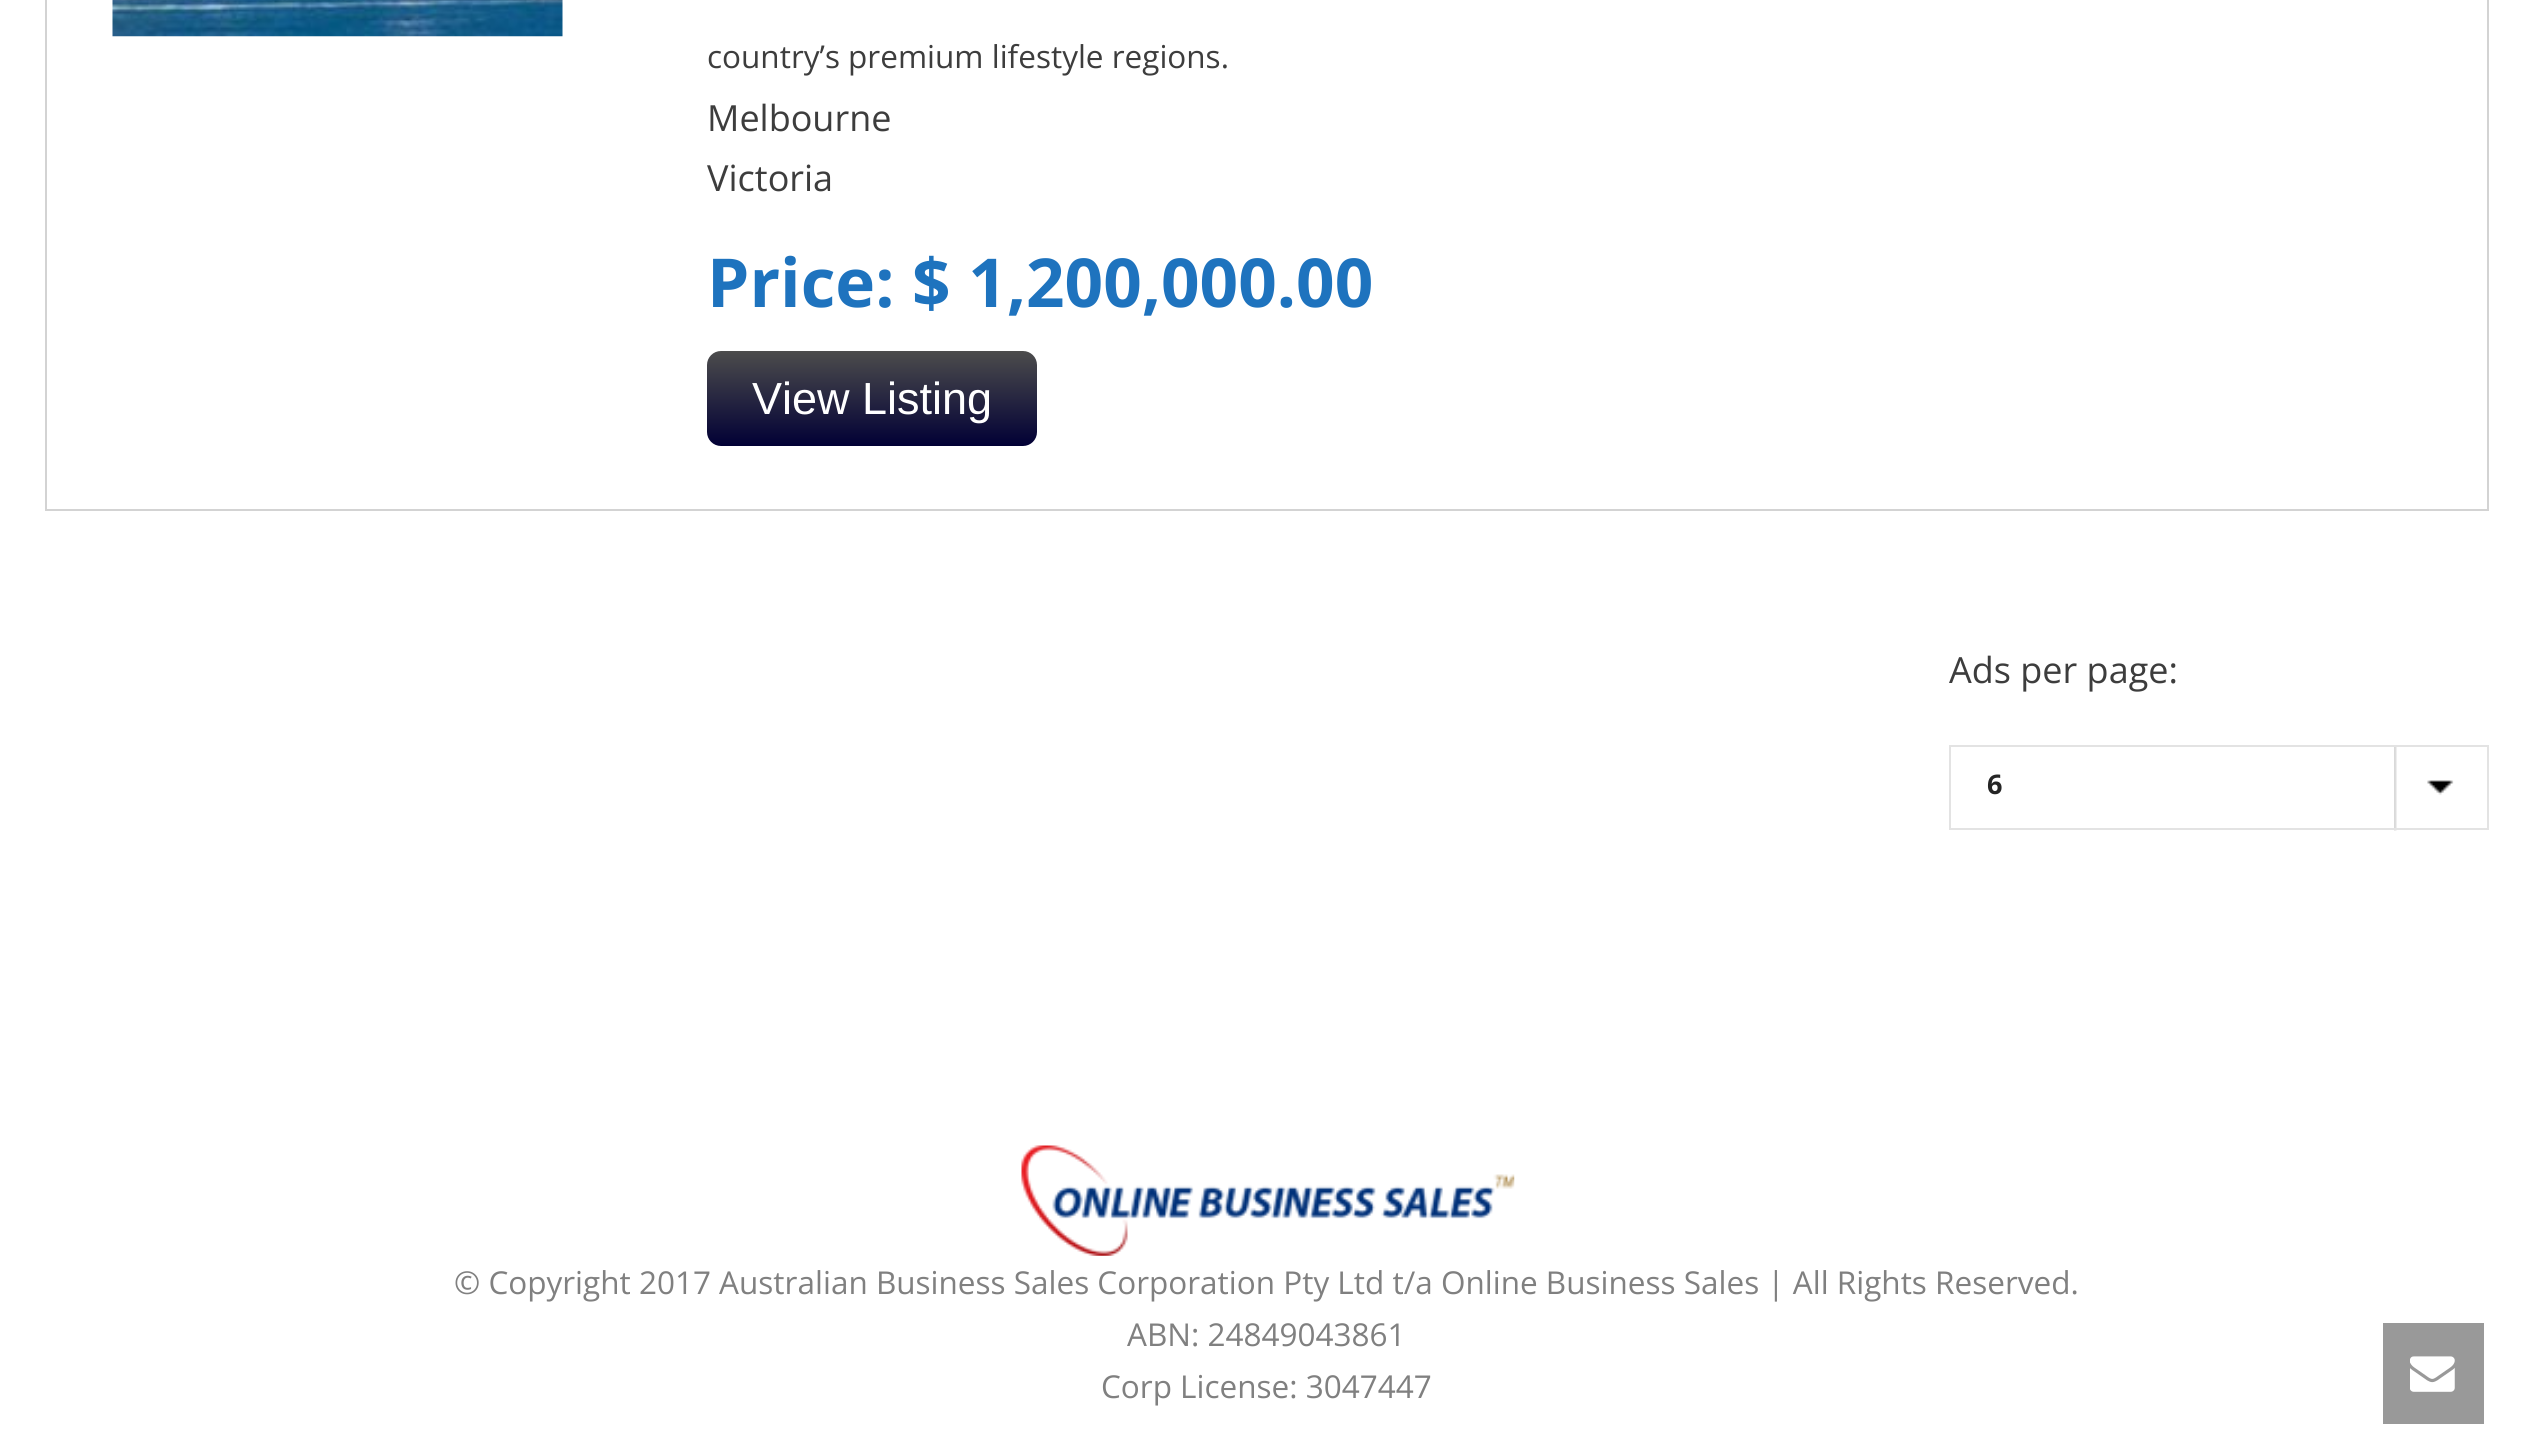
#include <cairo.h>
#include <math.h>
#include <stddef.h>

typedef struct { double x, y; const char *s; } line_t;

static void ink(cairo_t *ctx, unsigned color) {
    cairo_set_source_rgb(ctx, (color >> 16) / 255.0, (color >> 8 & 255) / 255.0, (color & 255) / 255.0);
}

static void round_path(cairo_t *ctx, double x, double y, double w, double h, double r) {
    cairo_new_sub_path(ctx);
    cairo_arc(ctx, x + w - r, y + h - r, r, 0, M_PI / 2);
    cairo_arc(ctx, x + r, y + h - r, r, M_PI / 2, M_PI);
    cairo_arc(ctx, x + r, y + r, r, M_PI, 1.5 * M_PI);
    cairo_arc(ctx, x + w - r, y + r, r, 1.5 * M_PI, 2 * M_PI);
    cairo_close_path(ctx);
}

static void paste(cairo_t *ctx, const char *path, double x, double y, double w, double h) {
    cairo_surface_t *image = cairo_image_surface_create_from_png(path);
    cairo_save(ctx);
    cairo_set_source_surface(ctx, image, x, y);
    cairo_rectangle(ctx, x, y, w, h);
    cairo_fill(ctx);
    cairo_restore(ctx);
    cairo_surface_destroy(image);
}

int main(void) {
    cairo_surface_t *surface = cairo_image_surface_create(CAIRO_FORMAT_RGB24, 2533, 1456);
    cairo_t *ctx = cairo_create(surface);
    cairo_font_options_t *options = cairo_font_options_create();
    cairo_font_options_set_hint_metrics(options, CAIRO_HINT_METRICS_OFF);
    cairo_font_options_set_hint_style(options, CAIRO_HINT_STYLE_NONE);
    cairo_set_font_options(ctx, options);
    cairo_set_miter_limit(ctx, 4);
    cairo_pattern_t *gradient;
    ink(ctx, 0xFFFFFF);
    cairo_paint(ctx);
    cairo_rectangle(ctx, 46, -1, 2442, 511);
    ink(ctx, 0xD3D3D3);
    cairo_stroke(ctx);
    paste(ctx, "media/1.png", 112, 0, 451, 37);
    cairo_select_font_face(ctx, "Open Sans", CAIRO_FONT_SLANT_NORMAL, CAIRO_FONT_WEIGHT_NORMAL);
    cairo_set_font_size(ctx, 31.5);
    ink(ctx, 0x3D3D3D);
    cairo_move_to(ctx, 707, 68);
    cairo_show_text(ctx, "country’s premium lifestyle regions.");
    cairo_set_font_size(ctx, 36);
    cairo_move_to(ctx, 707, 131);
    cairo_show_text(ctx, "Melbourne");
    cairo_move_to(ctx, 707, 191);
    cairo_show_text(ctx, "Victoria");
    cairo_select_font_face(ctx, "Open Sans", CAIRO_FONT_SLANT_NORMAL, CAIRO_FONT_WEIGHT_BOLD);
    cairo_set_font_size(ctx, 67.5);
    ink(ctx, 0x1E73BE);
    cairo_move_to(ctx, 707, 307);
    cairo_show_text(ctx, "Price: $ 1,200,000.00");
    gradient = cairo_pattern_create_linear(872, 351, 872, 446);
    cairo_pattern_add_color_stop_rgba(gradient, 0, 0.298, 0.298, 0.298, 1);
    cairo_pattern_add_color_stop_rgba(gradient, 1, 0.004, 0, 0.208, 1);
    cairo_set_source(ctx, gradient);
    cairo_pattern_destroy(gradient);
    round_path(ctx, 707, 351, 330, 95, 14);
    cairo_fill(ctx);
    cairo_select_font_face(ctx, "Liberation Sans", CAIRO_FONT_SLANT_NORMAL, CAIRO_FONT_WEIGHT_NORMAL);
    cairo_set_font_size(ctx, 45);
    ink(ctx, 0xFFFFFF);
    cairo_move_to(ctx, 752, 414);
    cairo_show_text(ctx, "View Listing");
    cairo_select_font_face(ctx, "Open Sans", CAIRO_FONT_SLANT_NORMAL, CAIRO_FONT_WEIGHT_NORMAL);
    cairo_set_font_size(ctx, 36);
    ink(ctx, 0x3D3D3D);
    cairo_move_to(ctx, 1949, 683);
    cairo_show_text(ctx, "Ads per page:");
    paste(ctx, "media/2.png", 2394, 747, 60, 84);
    cairo_rectangle(ctx, 1950, 746, 538, 83);
    ink(ctx, 0xE3E3E3);
    cairo_stroke(ctx);
    cairo_select_font_face(ctx, "Open Sans", CAIRO_FONT_SLANT_NORMAL, CAIRO_FONT_WEIGHT_BOLD);
    cairo_set_font_size(ctx, 27);
    ink(ctx, 0x252525);
    cairo_move_to(ctx, 1987, 794);
    cairo_show_text(ctx, "6");
    paste(ctx, "media/3.png", 1021, 1145, 494, 111);
    cairo_select_font_face(ctx, "Open Sans", CAIRO_FONT_SLANT_NORMAL, CAIRO_FONT_WEIGHT_NORMAL);
    cairo_set_font_size(ctx, 31.5);
    ink(ctx, 0x808080);
    {
        static const line_t items[] = {
            {454, 1294, "© Copyright 2017 Australian Business Sales Corporation Pty Ltd t/a Online Business Sales | All Rights Reserved."},
            {1127, 1346, "ABN: 24849043861"},
            {1101, 1398, "Corp License: 3047447"},
        };
        for (size_t i = 0; i < sizeof items / sizeof *items; i++) {
            cairo_move_to(ctx, items[i].x, items[i].y);
            cairo_show_text(ctx, items[i].s);
        }
    }
    ink(ctx, 0x999999);
    cairo_rectangle(ctx, 2383, 1323, 101, 101);
    cairo_fill(ctx);
    paste(ctx, "media/4.png", 2410, 1356, 45, 36);
    cairo_surface_write_to_png(surface, "image.png");
    cairo_font_options_destroy(options);
    cairo_destroy(ctx);
    cairo_surface_destroy(surface);
    return 0;
}
